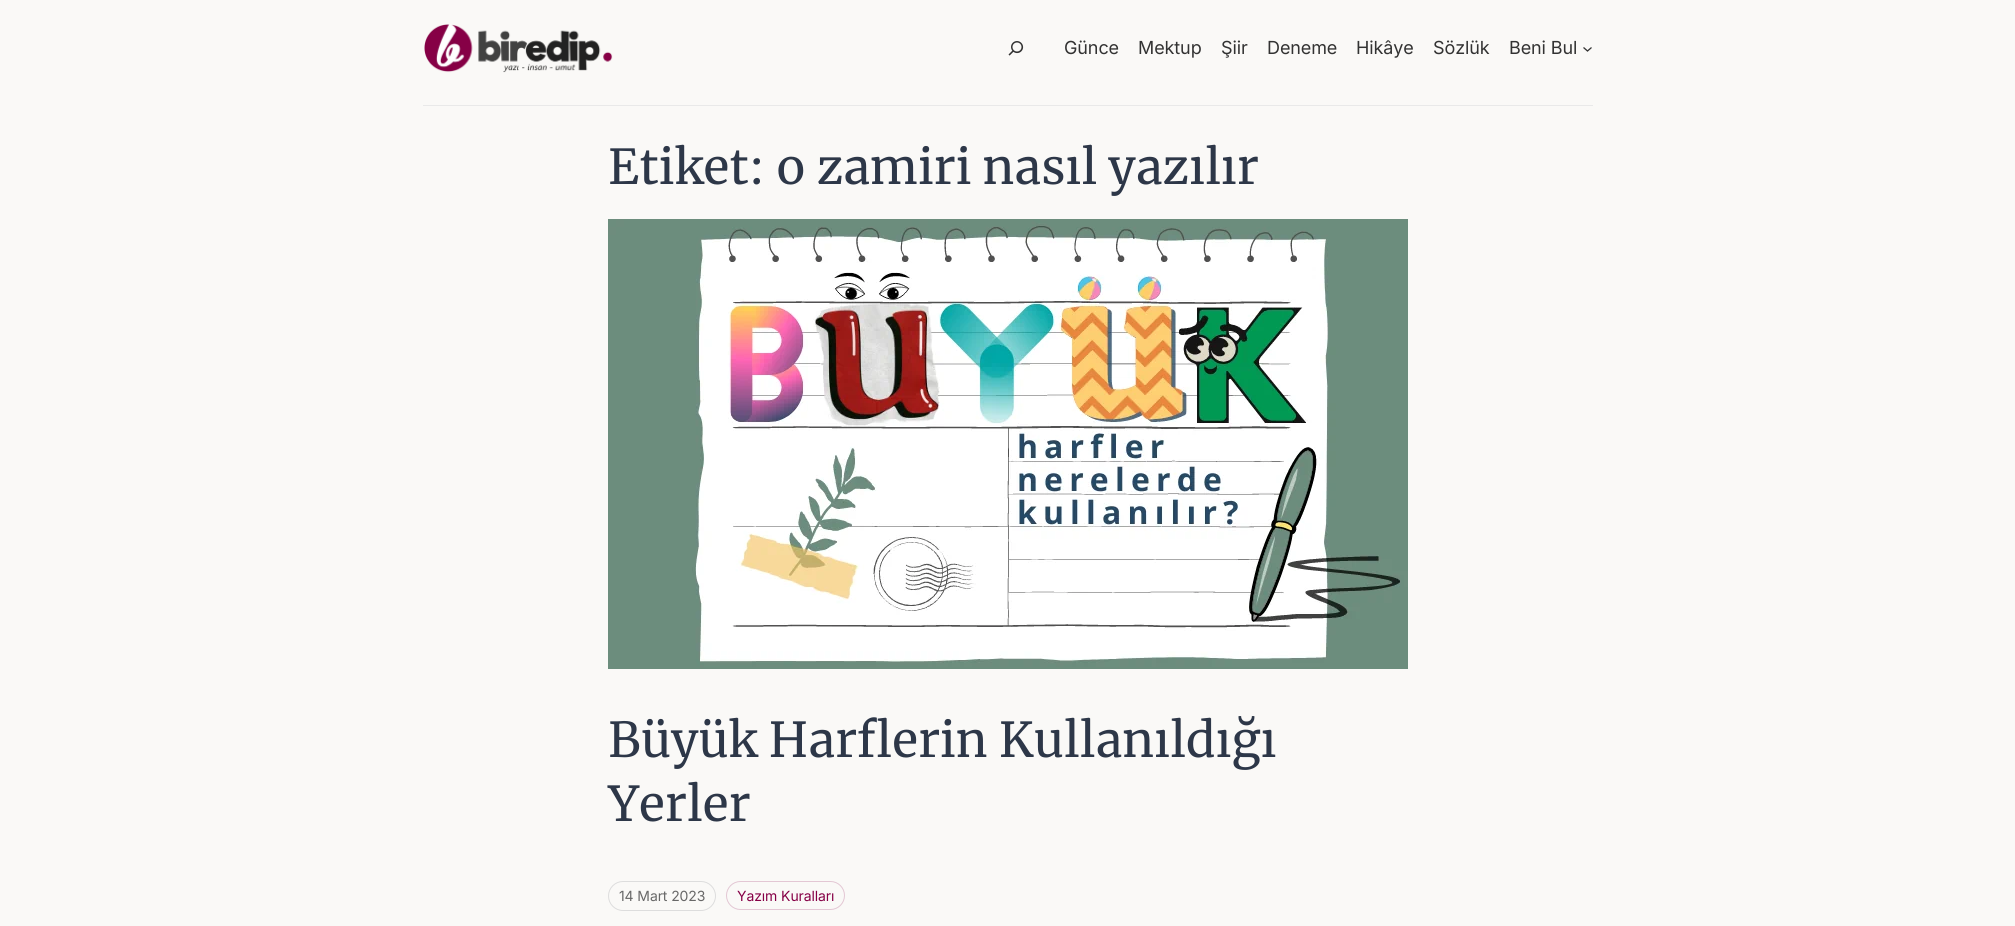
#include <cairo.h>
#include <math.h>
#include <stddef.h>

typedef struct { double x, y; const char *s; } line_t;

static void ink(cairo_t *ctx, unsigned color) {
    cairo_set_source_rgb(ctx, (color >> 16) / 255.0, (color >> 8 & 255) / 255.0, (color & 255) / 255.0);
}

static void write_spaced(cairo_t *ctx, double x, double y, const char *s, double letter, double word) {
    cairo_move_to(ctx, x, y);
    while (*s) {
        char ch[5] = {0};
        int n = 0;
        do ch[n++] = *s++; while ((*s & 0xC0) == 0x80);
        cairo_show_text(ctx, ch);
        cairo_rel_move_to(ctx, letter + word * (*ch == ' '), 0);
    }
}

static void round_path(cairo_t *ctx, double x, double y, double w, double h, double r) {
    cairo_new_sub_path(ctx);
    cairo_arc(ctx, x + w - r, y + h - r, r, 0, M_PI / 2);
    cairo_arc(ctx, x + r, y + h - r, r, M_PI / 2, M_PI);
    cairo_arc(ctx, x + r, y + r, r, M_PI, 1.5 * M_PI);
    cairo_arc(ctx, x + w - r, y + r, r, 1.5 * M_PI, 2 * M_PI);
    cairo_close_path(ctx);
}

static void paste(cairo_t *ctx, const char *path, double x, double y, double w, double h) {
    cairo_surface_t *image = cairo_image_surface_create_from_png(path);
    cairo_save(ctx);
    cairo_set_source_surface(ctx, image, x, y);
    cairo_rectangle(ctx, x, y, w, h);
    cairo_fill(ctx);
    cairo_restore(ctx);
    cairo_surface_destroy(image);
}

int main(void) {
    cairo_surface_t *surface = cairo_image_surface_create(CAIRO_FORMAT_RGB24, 2015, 926);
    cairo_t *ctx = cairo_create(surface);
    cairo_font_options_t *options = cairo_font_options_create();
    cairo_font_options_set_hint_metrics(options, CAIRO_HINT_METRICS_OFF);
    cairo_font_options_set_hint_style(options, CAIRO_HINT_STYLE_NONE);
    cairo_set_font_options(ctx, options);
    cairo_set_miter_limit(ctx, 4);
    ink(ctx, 0xFAF9F7);
    cairo_paint(ctx);
    paste(ctx, "media/1.png", 424, 24, 189, 49);
    paste(ctx, "media/2.png", 1008, 41, 16, 15);
    cairo_select_font_face(ctx, "Inter", CAIRO_FONT_SLANT_NORMAL, CAIRO_FONT_WEIGHT_NORMAL);
    cairo_set_font_size(ctx, 18);
    ink(ctx, 0x333333);
    {
        static const line_t items[] = {
            {1064, 54, "Günce"},
            {1138, 54, "Mektup"},
            {1221, 54, "Şiir"},
            {1267, 54, "Deneme"},
            {1356, 54, "Hikâye"},
            {1433, 54, "Sözlük"},
            {1509, 54, "Beni Bul"},
        };
        for (size_t i = 0; i < sizeof items / sizeof *items; i++) {
            write_spaced(ctx, items[i].x, items[i].y, items[i].s, -0.1, 0);
        }
    }
    cairo_new_path(ctx);
    cairo_move_to(ctx, 1583.5, 47.5);
    cairo_line_to(ctx, 1587.5, 51);
    cairo_line_to(ctx, 1591.5, 47.5);
    cairo_set_line_width(ctx, 1.3);
    cairo_stroke(ctx);
    ink(ctx, 0xE9E9E9);
    cairo_rectangle(ctx, 423, 105, 1170, 1);
    cairo_fill(ctx);
    cairo_select_font_face(ctx, "Merriweather", CAIRO_FONT_SLANT_NORMAL, CAIRO_FONT_WEIGHT_NORMAL);
    cairo_set_font_size(ctx, 48);
    ink(ctx, 0x2D3748);
    write_spaced(ctx, 608, 184, "Etiket: o zamiri nasıl yazılır", -0.1, 0);
    paste(ctx, "media/3.png", 608, 219, 800, 450);
    write_spaced(ctx, 608, 757, "Büyük Harflerin Kullanıldığı", -0.1, 0);
    write_spaced(ctx, 608, 821, "Yerler", -0.1, 0);
    round_path(ctx, 608.5, 881.5, 107, 29, 14.5);
    ink(ctx, 0xDDDDDD);
    cairo_set_line_width(ctx, 1);
    cairo_stroke(ctx);
    cairo_select_font_face(ctx, "Inter", CAIRO_FONT_SLANT_NORMAL, CAIRO_FONT_WEIGHT_NORMAL);
    cairo_set_font_size(ctx, 14);
    ink(ctx, 0x686868);
    write_spaced(ctx, 619, 901, "14 Mart 2023", -0.1, 0);
    round_path(ctx, 726.5, 881.5, 118, 28, 14);
    ink(ctx, 0xE3C7D4);
    cairo_stroke(ctx);
    ink(ctx, 0x860046);
    write_spaced(ctx, 737, 901, "Yazım Kuralları", -0.1, 0);
    cairo_surface_write_to_png(surface, "image.png");
    cairo_font_options_destroy(options);
    cairo_destroy(ctx);
    cairo_surface_destroy(surface);
    return 0;
}
